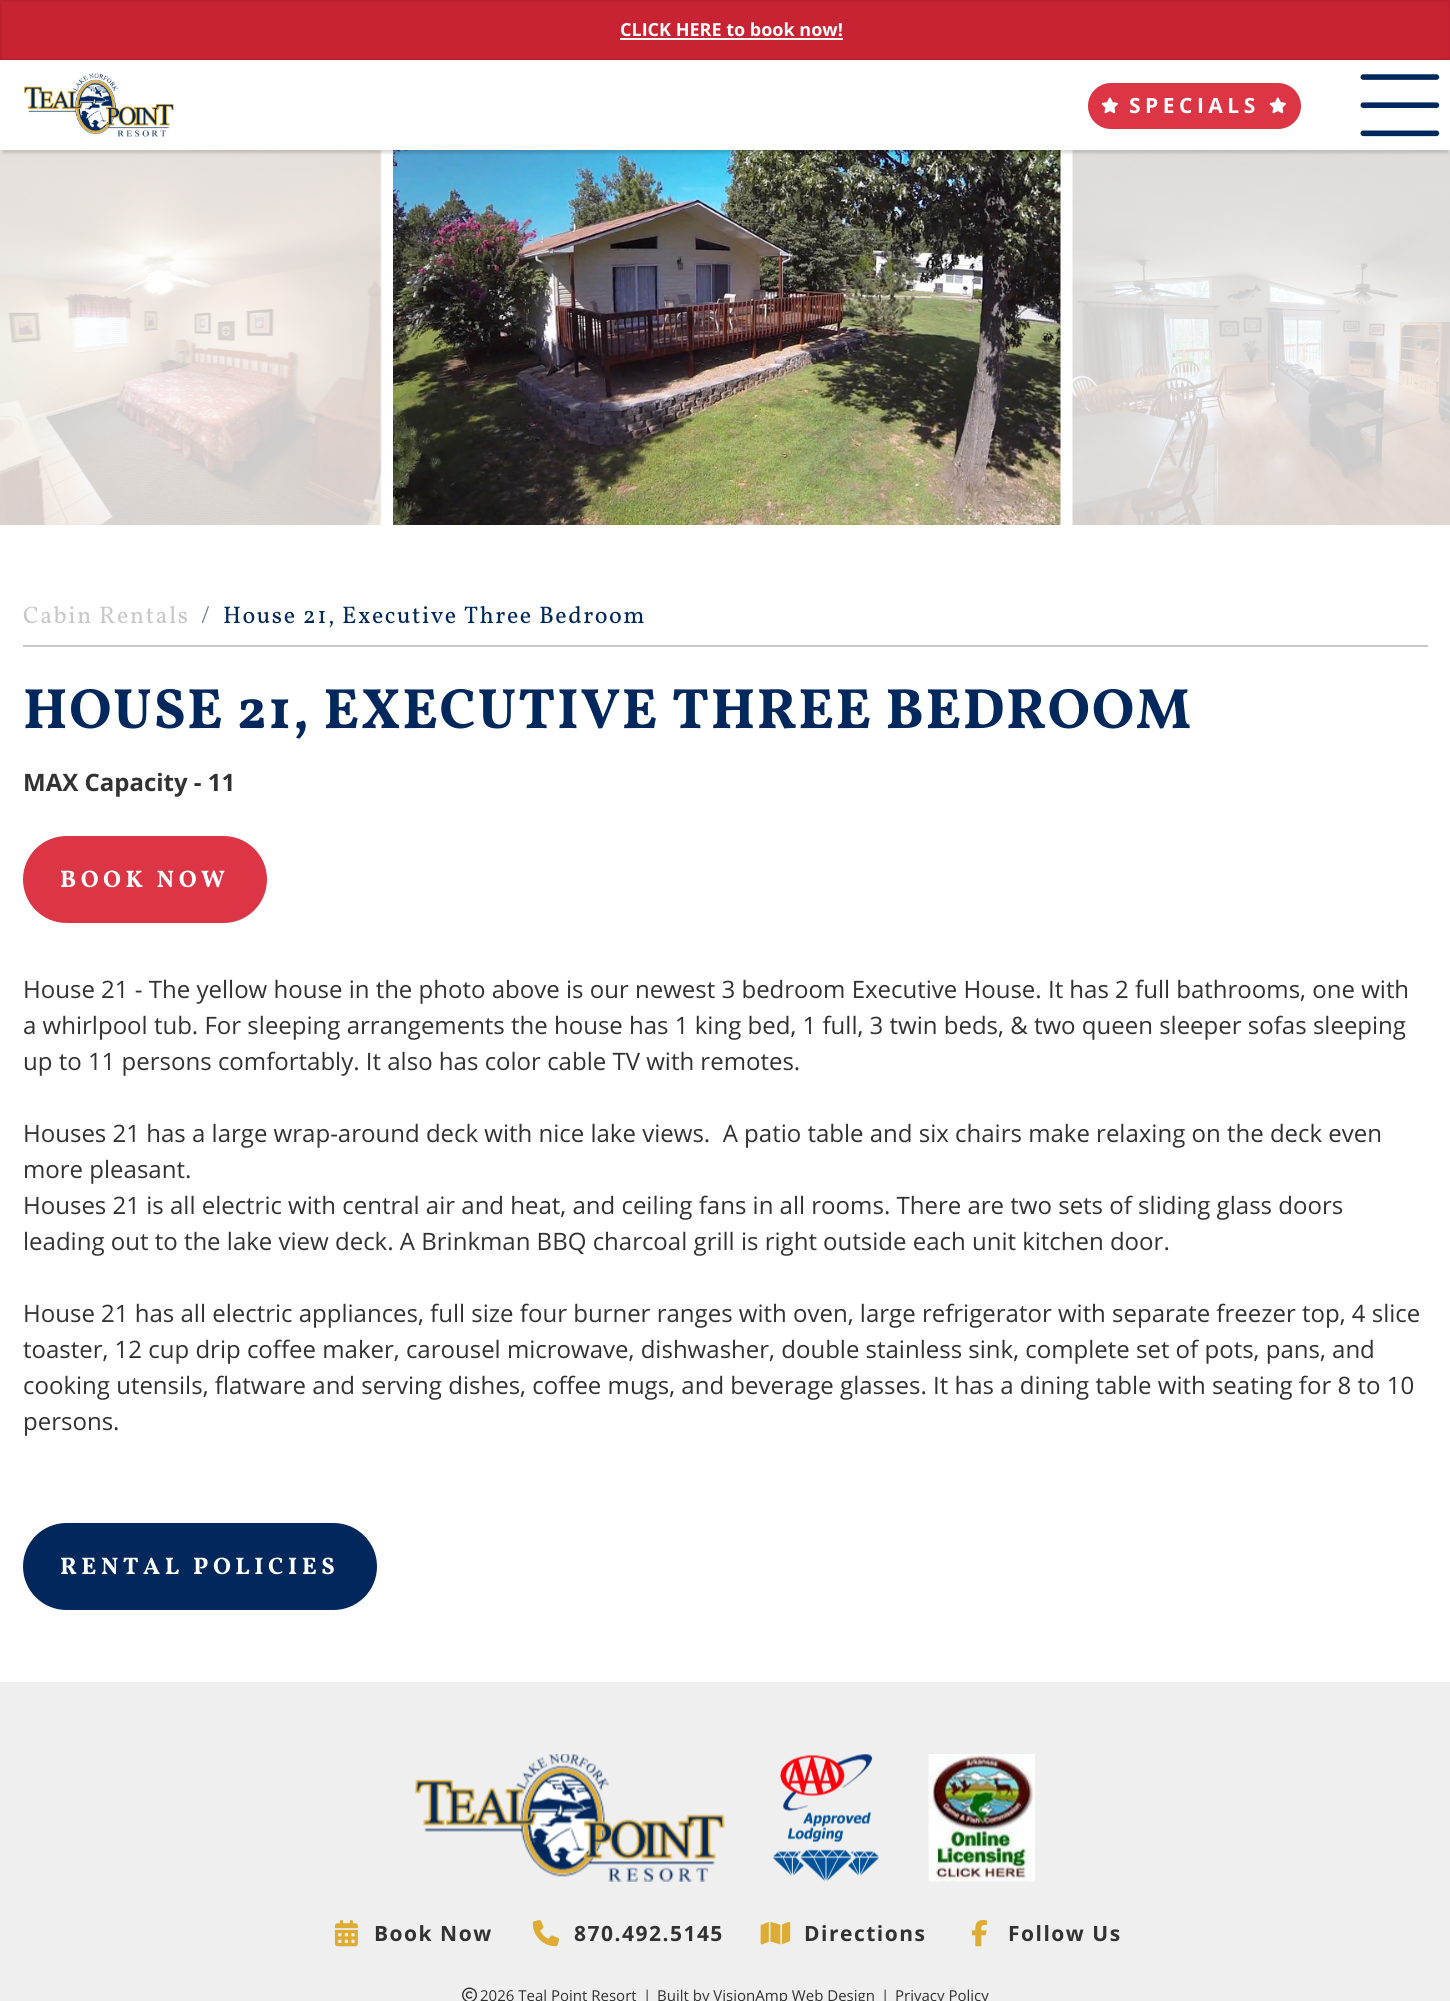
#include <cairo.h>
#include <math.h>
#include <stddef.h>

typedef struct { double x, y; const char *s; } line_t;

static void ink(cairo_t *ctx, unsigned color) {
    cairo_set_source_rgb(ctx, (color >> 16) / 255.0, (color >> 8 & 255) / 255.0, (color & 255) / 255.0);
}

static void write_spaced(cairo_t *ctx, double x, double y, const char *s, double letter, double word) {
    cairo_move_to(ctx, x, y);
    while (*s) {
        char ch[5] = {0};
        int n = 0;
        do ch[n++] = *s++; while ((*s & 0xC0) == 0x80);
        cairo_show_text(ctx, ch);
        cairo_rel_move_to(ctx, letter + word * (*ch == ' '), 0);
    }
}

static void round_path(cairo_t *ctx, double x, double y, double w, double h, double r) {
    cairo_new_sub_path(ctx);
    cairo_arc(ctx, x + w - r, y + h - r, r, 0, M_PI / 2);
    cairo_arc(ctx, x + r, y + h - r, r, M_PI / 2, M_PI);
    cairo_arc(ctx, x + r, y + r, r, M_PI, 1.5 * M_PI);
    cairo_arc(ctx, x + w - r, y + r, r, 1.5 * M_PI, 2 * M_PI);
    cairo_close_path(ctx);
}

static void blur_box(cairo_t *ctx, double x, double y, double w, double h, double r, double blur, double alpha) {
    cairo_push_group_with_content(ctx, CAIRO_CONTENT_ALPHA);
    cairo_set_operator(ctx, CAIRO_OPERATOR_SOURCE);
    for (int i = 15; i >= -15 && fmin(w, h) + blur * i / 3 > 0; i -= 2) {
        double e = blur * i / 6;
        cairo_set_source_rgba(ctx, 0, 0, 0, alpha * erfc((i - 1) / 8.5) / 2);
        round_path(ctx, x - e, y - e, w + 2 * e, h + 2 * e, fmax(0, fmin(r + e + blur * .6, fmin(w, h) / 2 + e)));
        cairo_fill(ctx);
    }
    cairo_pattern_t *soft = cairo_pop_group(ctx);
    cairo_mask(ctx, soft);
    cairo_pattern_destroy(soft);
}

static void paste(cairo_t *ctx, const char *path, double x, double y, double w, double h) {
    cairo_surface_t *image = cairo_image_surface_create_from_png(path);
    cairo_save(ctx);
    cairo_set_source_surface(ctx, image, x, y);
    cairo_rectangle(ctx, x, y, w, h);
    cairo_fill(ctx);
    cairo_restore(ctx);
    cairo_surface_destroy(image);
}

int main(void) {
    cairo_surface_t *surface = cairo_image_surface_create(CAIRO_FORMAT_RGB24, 1450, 2001);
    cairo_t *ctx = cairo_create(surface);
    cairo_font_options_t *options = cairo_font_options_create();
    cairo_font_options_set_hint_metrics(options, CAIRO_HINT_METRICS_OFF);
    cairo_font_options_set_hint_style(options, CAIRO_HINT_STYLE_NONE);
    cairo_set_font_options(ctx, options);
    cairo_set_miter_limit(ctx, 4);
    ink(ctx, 0xFFFFFF);
    cairo_paint(ctx);
    ink(ctx, 0xC82333);
    cairo_rectangle(ctx, 1, 1, 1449, 58);
    cairo_fill_preserve(ctx);
    ink(ctx, 0xBD2130);
    cairo_stroke(ctx);
    cairo_select_font_face(ctx, "Open Sans", CAIRO_FONT_SLANT_NORMAL, CAIRO_FONT_WEIGHT_BOLD);
    cairo_set_font_size(ctx, 18);
    ink(ctx, 0xFFFFFF);
    cairo_move_to(ctx, 620, 36);
    cairo_show_text(ctx, "CLICK HERE to book now!");
    cairo_rectangle(ctx, 620, 38, 223, 2);
    cairo_fill(ctx);
    paste(ctx, "media/4.png", 0, 150, 382, 375);
    paste(ctx, "media/5.png", 393, 150, 668, 375);
    paste(ctx, "media/6.png", 1072, 150, 378, 375);
    cairo_save(ctx);
    cairo_rectangle(ctx, 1, 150, 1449, 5);
    cairo_clip(ctx);
    ink(ctx, 0x000000);
    blur_box(ctx, 3, 69, 1445, 84, 0, 1.5, 0.15);
    cairo_restore(ctx);
    paste(ctx, "media/1.png", 24, 73, 150, 64);
    ink(ctx, 0xDC3545);
    round_path(ctx, 1089, 84, 211, 44, 22);
    cairo_fill_preserve(ctx);
    cairo_stroke(ctx);
    paste(ctx, "media/2.png", 1101, 97, 17, 17);
    cairo_set_font_size(ctx, 21);
    ink(ctx, 0xFFFFFF);
    write_spaced(ctx, 1129, 113, "SPECIALS", 4.5, 0);
    paste(ctx, "media/2.png", 1269, 97, 17, 17);
    paste(ctx, "media/3.png", 1360, 74, 80, 63);
    ink(ctx, 0xC8C8C8);
    cairo_rectangle(ctx, 23, 645, 1405, 2);
    cairo_fill(ctx);
    cairo_select_font_face(ctx, "Vollkorn", CAIRO_FONT_SLANT_NORMAL, CAIRO_FONT_WEIGHT_NORMAL);
    cairo_set_font_size(ctx, 24);
    write_spaced(ctx, 23, 623, "Cabin Rentals", 1.5, 0);
    ink(ctx, 0x6C757D);
    write_spaced(ctx, 201, 623, "/", 1.5, 0);
    ink(ctx, 0x00285D);
    write_spaced(ctx, 223, 623, "House 21, Executive Three Bedroom", 1.5, 0);
    cairo_select_font_face(ctx, "Vollkorn", CAIRO_FONT_SLANT_NORMAL, CAIRO_FONT_WEIGHT_BOLD);
    cairo_set_font_size(ctx, 57);
    write_spaced(ctx, 23, 728, "HOUSE 21, EXECUTIVE THREE BEDROOM", 1.5, 0);
    cairo_select_font_face(ctx, "Open Sans", CAIRO_FONT_SLANT_NORMAL, CAIRO_FONT_WEIGHT_BOLD);
    cairo_set_font_size(ctx, 24);
    ink(ctx, 0x323232);
    cairo_move_to(ctx, 23, 791);
    cairo_show_text(ctx, "MAX Capacity - 11");
    ink(ctx, 0xDC3545);
    round_path(ctx, 24, 837, 242, 85, 42.5);
    cairo_fill_preserve(ctx);
    cairo_stroke(ctx);
    cairo_select_font_face(ctx, "Vollkorn", CAIRO_FONT_SLANT_NORMAL, CAIRO_FONT_WEIGHT_BOLD);
    ink(ctx, 0xFFFFFF);
    write_spaced(ctx, 60, 887, "BOOK NOW", 4.5, 0);
    cairo_select_font_face(ctx, "Open Sans", CAIRO_FONT_SLANT_NORMAL, CAIRO_FONT_WEIGHT_NORMAL);
    ink(ctx, 0x323232);
    {
        static const line_t items[] = {
            {23, 998, "House 21 - The yellow house in the photo above is our newest 3 bedroom Executive House. It has 2 full bathrooms, one with"},
            {23, 1034, "a whirlpool tub. For sleeping arrangements the house has 1 king bed, 1 full, 3 twin beds, & two queen sleeper sofas sleeping"},
            {23, 1070, "up to 11 persons comfortably. It also has color cable TV with remotes."},
            {23, 1142, "Houses 21 has a large wrap-around deck with nice lake views.  A patio table and six chairs make relaxing on the deck even"},
            {23, 1178, "more pleasant."},
            {23, 1214, "Houses 21 is all electric with central air and heat, and ceiling fans in all rooms. There are two sets of sliding glass doors"},
            {23, 1250, "leading out to the lake view deck. A Brinkman BBQ charcoal grill is right outside each unit kitchen door."},
            {23, 1322, "House 21 has all electric appliances, full size four burner ranges with oven, large refrigerator with separate freezer top, 4 slice"},
            {23, 1358, "toaster, 12 cup drip coffee maker, carousel microwave, dishwasher, double stainless sink, complete set of pots, pans, and"},
            {23, 1394, "cooking utensils, flatware and serving dishes, coffee mugs, and beverage glasses. It has a dining table with seating for 8 to 10"},
            {23, 1430, "persons."},
        };
        for (size_t i = 0; i < sizeof items / sizeof *items; i++) {
            cairo_move_to(ctx, items[i].x, items[i].y);
            cairo_show_text(ctx, items[i].s);
        }
    }
    ink(ctx, 0x00285D);
    round_path(ctx, 24, 1524, 352, 85, 42.5);
    cairo_fill_preserve(ctx);
    cairo_stroke(ctx);
    cairo_select_font_face(ctx, "Vollkorn", CAIRO_FONT_SLANT_NORMAL, CAIRO_FONT_WEIGHT_BOLD);
    ink(ctx, 0xFFFFFF);
    write_spaced(ctx, 60, 1574, "RENTAL POLICIES", 4.5, 0);
    ink(ctx, 0xEFEFEF);
    cairo_rectangle(ctx, 0, 1682, 1450, 319);
    cairo_fill(ctx);
    paste(ctx, "media/7.png", 415, 1754, 310, 128);
    paste(ctx, "media/8.png", 773, 1754, 106, 128);
    paste(ctx, "media/9.png", 928, 1754, 107, 128);
    paste(ctx, "media/10.png", 334, 1920, 24, 27);
    cairo_select_font_face(ctx, "Open Sans", CAIRO_FONT_SLANT_NORMAL, CAIRO_FONT_WEIGHT_BOLD);
    cairo_set_font_size(ctx, 21);
    ink(ctx, 0x323232);
    write_spaced(ctx, 374, 1941, "Book Now", 1.5, 0);
    paste(ctx, "media/11.png", 532, 1920, 27, 27);
    write_spaced(ctx, 574, 1941, "870.492.5145", 1.5, 0);
    paste(ctx, "media/12.png", 760, 1921, 31, 24);
    write_spaced(ctx, 804, 1941, "Directions", 1.5, 0);
    paste(ctx, "media/13.png", 971, 1920, 16, 27);
    write_spaced(ctx, 1008, 1941, "Follow Us", 1.5, 0);
    paste(ctx, "media/14.png", 462, 1987, 15, 14);
    cairo_select_font_face(ctx, "Open Sans", CAIRO_FONT_SLANT_NORMAL, CAIRO_FONT_WEIGHT_NORMAL);
    cairo_set_font_size(ctx, 15);
    {
        static const line_t items[] = {
            {480, 2001, "2026 Teal Point Resort"},
            {643, 2001, "|"},
            {657, 2001, "Built by VisionAmp Web Design"},
            {881, 2001, "|"},
            {895, 2001, "Privacy Policy"},
        };
        for (size_t i = 0; i < sizeof items / sizeof *items; i++) {
            cairo_move_to(ctx, items[i].x, items[i].y);
            cairo_show_text(ctx, items[i].s);
        }
    }
    cairo_surface_write_to_png(surface, "image.png");
    cairo_font_options_destroy(options);
    cairo_destroy(ctx);
    cairo_surface_destroy(surface);
    return 0;
}
